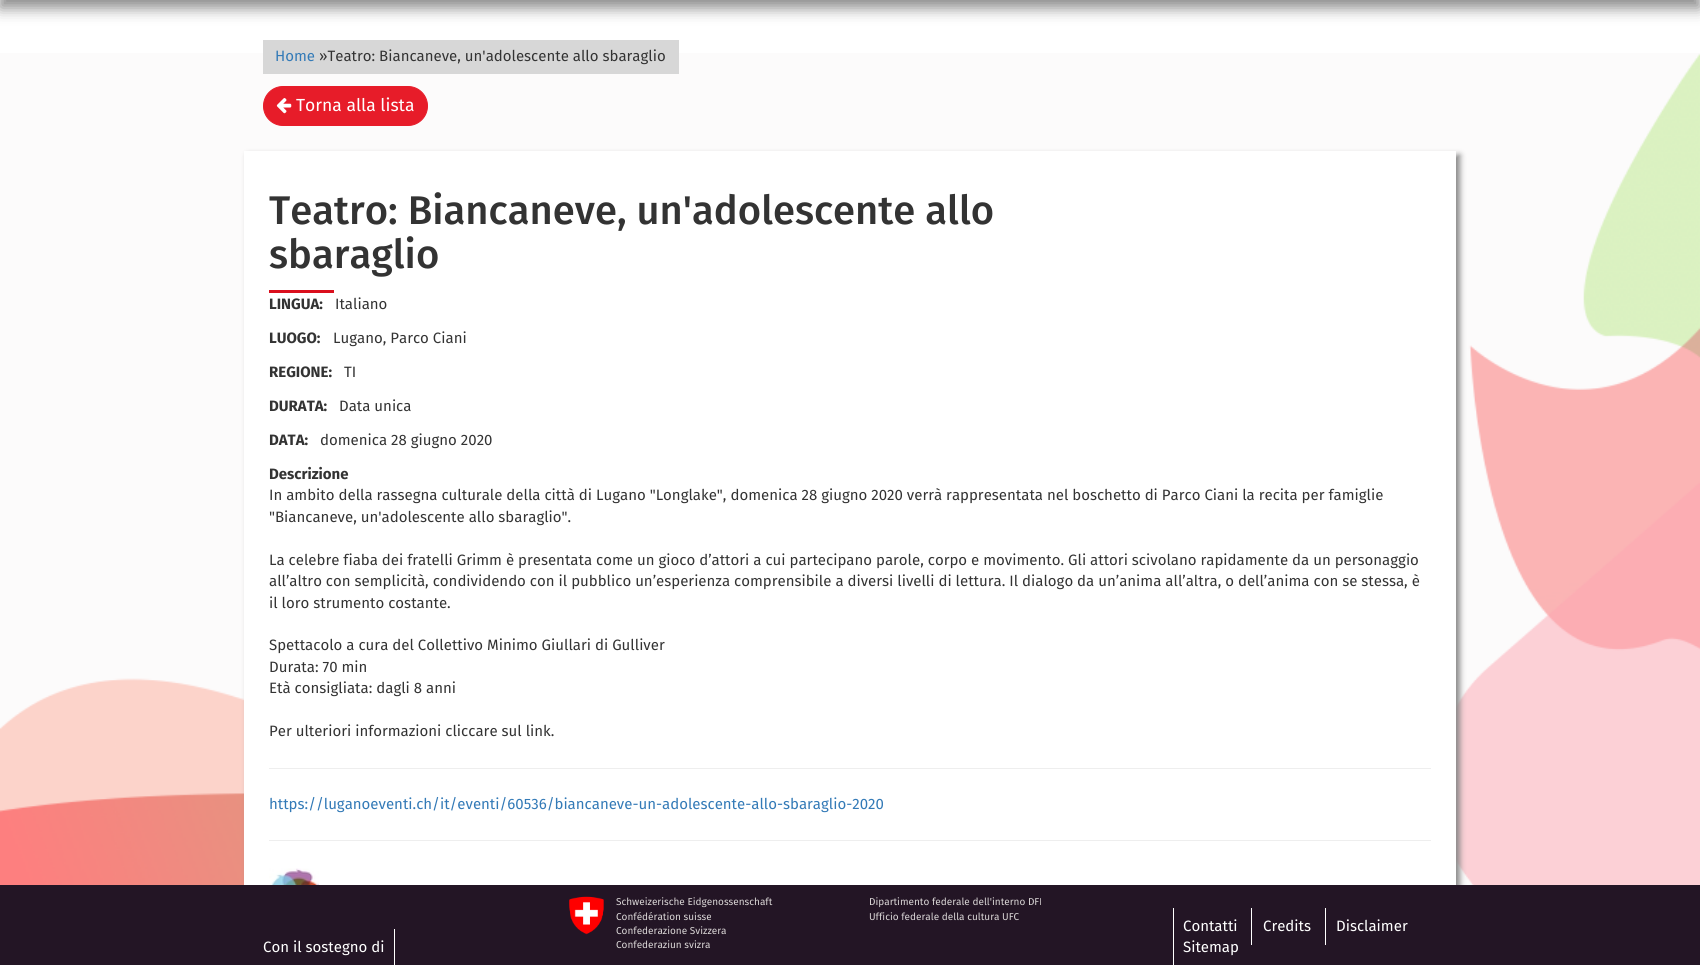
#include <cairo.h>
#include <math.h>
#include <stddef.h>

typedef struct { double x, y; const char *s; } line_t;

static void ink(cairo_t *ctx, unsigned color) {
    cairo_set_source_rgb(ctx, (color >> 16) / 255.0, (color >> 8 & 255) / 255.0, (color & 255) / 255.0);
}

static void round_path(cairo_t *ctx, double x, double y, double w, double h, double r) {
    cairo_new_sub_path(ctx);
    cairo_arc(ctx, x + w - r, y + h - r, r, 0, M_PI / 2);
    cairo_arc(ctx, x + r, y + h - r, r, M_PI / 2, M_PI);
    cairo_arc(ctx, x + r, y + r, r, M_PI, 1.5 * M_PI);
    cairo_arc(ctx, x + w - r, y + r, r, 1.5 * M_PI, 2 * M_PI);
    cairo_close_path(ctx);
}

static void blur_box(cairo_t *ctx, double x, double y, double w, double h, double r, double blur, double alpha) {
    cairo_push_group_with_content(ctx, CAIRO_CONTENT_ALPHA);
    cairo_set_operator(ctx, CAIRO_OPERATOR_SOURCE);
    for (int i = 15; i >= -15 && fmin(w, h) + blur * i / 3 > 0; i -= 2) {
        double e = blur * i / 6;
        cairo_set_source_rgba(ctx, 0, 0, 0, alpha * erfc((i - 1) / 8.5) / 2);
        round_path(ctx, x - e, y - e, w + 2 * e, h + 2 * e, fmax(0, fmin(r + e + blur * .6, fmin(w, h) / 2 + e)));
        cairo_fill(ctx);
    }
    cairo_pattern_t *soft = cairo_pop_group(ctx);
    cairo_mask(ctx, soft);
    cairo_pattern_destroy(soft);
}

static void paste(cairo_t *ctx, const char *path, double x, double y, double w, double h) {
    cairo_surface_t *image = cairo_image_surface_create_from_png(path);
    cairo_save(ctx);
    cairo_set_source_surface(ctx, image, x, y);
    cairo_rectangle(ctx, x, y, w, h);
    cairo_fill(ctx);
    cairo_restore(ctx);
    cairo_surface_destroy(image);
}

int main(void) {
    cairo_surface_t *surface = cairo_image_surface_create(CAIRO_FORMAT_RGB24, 1700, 965);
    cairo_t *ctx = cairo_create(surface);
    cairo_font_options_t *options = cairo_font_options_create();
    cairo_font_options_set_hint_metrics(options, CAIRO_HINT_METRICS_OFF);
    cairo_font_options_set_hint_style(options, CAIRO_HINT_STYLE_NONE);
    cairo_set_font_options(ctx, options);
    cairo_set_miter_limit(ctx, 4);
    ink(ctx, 0xFFFFFF);
    cairo_paint(ctx);
    paste(ctx, "media/1.png", 0, 53, 1700, 832);
    ink(ctx, 0x888888);
    blur_box(ctx, 0, -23, 1700, 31, 0, 7.5, 1);
    ink(ctx, 0xD7D7D7);
    cairo_rectangle(ctx, 263, 40, 416, 34);
    cairo_fill(ctx);
    cairo_select_font_face(ctx, "Fira Sans", CAIRO_FONT_SLANT_NORMAL, CAIRO_FONT_WEIGHT_NORMAL);
    cairo_set_font_size(ctx, 15);
    ink(ctx, 0x337AB7);
    cairo_move_to(ctx, 275, 61);
    cairo_show_text(ctx, "Home");
    ink(ctx, 0x333333);
    cairo_move_to(ctx, 319, 61);
    cairo_show_text(ctx, "»Teatro: Biancaneve, un'adolescente allo sbaraglio");
    ink(ctx, 0xE71C29);
    round_path(ctx, 263.5, 86.5, 164, 39, 19.5);
    cairo_fill_preserve(ctx);
    cairo_set_line_width(ctx, 1);
    cairo_stroke(ctx);
    paste(ctx, "media/2.png", 276, 98, 16, 16);
    cairo_set_font_size(ctx, 17.5);
    ink(ctx, 0xFFFFFF);
    cairo_move_to(ctx, 296, 111);
    cairo_show_text(ctx, "Torna alla lista");
    ink(ctx, 0x888888);
    blur_box(ctx, 248, 155, 1212, 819, 0, 3, 1);
    ink(ctx, 0xFFFFFF);
    cairo_rectangle(ctx, 244, 151, 1212, 734);
    cairo_fill(ctx);
    cairo_select_font_face(ctx, "Fira Sans Medium", CAIRO_FONT_SLANT_NORMAL, CAIRO_FONT_WEIGHT_NORMAL);
    cairo_set_font_size(ctx, 40);
    ink(ctx, 0x333333);
    cairo_move_to(ctx, 269, 224);
    cairo_show_text(ctx, "Teatro: Biancaneve, un'adolescente allo");
    cairo_move_to(ctx, 269, 268);
    cairo_show_text(ctx, "sbaraglio");
    ink(ctx, 0xDA0F1D);
    cairo_rectangle(ctx, 269, 290, 65, 3);
    cairo_fill(ctx);
    cairo_select_font_face(ctx, "Fira Sans", CAIRO_FONT_SLANT_NORMAL, CAIRO_FONT_WEIGHT_BOLD);
    cairo_set_font_size(ctx, 15);
    ink(ctx, 0x333333);
    cairo_move_to(ctx, 269, 309);
    cairo_show_text(ctx, "LINGUA:");
    cairo_select_font_face(ctx, "Fira Sans", CAIRO_FONT_SLANT_NORMAL, CAIRO_FONT_WEIGHT_NORMAL);
    cairo_move_to(ctx, 335, 309);
    cairo_show_text(ctx, "Italiano");
    cairo_select_font_face(ctx, "Fira Sans", CAIRO_FONT_SLANT_NORMAL, CAIRO_FONT_WEIGHT_BOLD);
    cairo_move_to(ctx, 269, 343);
    cairo_show_text(ctx, "LUOGO:");
    cairo_select_font_face(ctx, "Fira Sans", CAIRO_FONT_SLANT_NORMAL, CAIRO_FONT_WEIGHT_NORMAL);
    cairo_move_to(ctx, 333, 343);
    cairo_show_text(ctx, "Lugano, Parco Ciani");
    cairo_select_font_face(ctx, "Fira Sans", CAIRO_FONT_SLANT_NORMAL, CAIRO_FONT_WEIGHT_BOLD);
    cairo_move_to(ctx, 269, 377);
    cairo_show_text(ctx, "REGIONE:");
    cairo_select_font_face(ctx, "Fira Sans", CAIRO_FONT_SLANT_NORMAL, CAIRO_FONT_WEIGHT_NORMAL);
    cairo_move_to(ctx, 344, 377);
    cairo_show_text(ctx, "TI");
    cairo_select_font_face(ctx, "Fira Sans", CAIRO_FONT_SLANT_NORMAL, CAIRO_FONT_WEIGHT_BOLD);
    cairo_move_to(ctx, 269, 411);
    cairo_show_text(ctx, "DURATA:");
    cairo_select_font_face(ctx, "Fira Sans", CAIRO_FONT_SLANT_NORMAL, CAIRO_FONT_WEIGHT_NORMAL);
    cairo_move_to(ctx, 339, 411);
    cairo_show_text(ctx, "Data unica");
    cairo_select_font_face(ctx, "Fira Sans", CAIRO_FONT_SLANT_NORMAL, CAIRO_FONT_WEIGHT_BOLD);
    cairo_move_to(ctx, 269, 445);
    cairo_show_text(ctx, "DATA:");
    cairo_select_font_face(ctx, "Fira Sans", CAIRO_FONT_SLANT_NORMAL, CAIRO_FONT_WEIGHT_NORMAL);
    cairo_move_to(ctx, 320, 445);
    cairo_show_text(ctx, "domenica 28 giugno 2020");
    cairo_select_font_face(ctx, "Fira Sans", CAIRO_FONT_SLANT_NORMAL, CAIRO_FONT_WEIGHT_BOLD);
    cairo_move_to(ctx, 269, 479);
    cairo_show_text(ctx, "Descrizione");
    cairo_select_font_face(ctx, "Fira Sans", CAIRO_FONT_SLANT_NORMAL, CAIRO_FONT_WEIGHT_NORMAL);
    {
        static const line_t items[] = {
            {269, 500, "In ambito della rassegna culturale della città di Lugano \"Longlake\", domenica 28 giugno 2020 verrà rappresentata nel boschetto di Parco Ciani la recita per famiglie"},
            {269, 522, "\"Biancaneve, un'adolescente allo sbaraglio\"."},
            {269, 565, "La celebre fiaba dei fratelli Grimm è presentata come un gioco d’attori a cui partecipano parole, corpo e movimento. Gli attori scivolano rapidamente da un personaggio"},
            {269, 586, "all’altro con semplicità, condividendo con il pubblico un’esperienza comprensibile a diversi livelli di lettura. Il dialogo da un’anima all’altra, o dell’anima con se stessa, è"},
            {269, 608, "il loro strumento costante."},
            {269, 650, "Spettacolo a cura del Collettivo Minimo Giullari di Gulliver"},
            {269, 672, "Durata: 70 min"},
            {269, 693, "Età consigliata: dagli 8 anni"},
            {269, 736, "Per ulteriori informazioni cliccare sul link."},
        };
        for (size_t i = 0; i < sizeof items / sizeof *items; i++) {
            cairo_move_to(ctx, items[i].x, items[i].y);
            cairo_show_text(ctx, items[i].s);
        }
    }
    ink(ctx, 0xEEEEEE);
    cairo_rectangle(ctx, 269, 768, 1162, 1);
    cairo_fill(ctx);
    ink(ctx, 0x337AB7);
    cairo_move_to(ctx, 269, 809);
    cairo_show_text(ctx, "https://luganoeventi.ch/it/eventi/60536/biancaneve-un-adolescente-allo-sbaraglio-2020");
    ink(ctx, 0xEEEEEE);
    cairo_rectangle(ctx, 269, 840, 1162, 1);
    cairo_fill(ctx);
    paste(ctx, "media/3.png", 268, 868, 51, 17);
    ink(ctx, 0x231525);
    cairo_rectangle(ctx, 0, 885, 1700, 80);
    cairo_fill(ctx);
    ink(ctx, 0xFFFFFF);
    cairo_move_to(ctx, 263, 952);
    cairo_show_text(ctx, "Con il sostegno di");
    cairo_rectangle(ctx, 394, 929, 1, 36);
    cairo_fill(ctx);
    paste(ctx, "media/4.png", 569, 896, 35, 39);
    cairo_set_font_size(ctx, 10);
    ink(ctx, 0xDAD6D6);
    {
        static const line_t items[] = {
            {616, 905, "Schweizerische Eidgenossenschaft"},
            {616, 920, "Confédération suisse"},
            {616, 934, "Confederazione Svizzera"},
            {616, 948, "Confederaziun svizra"},
            {869, 905, "Dipartimento federale dell'interno DFI"},
            {869, 920, "Ufficio federale della cultura UFC"},
        };
        for (size_t i = 0; i < sizeof items / sizeof *items; i++) {
            cairo_move_to(ctx, items[i].x, items[i].y);
            cairo_show_text(ctx, items[i].s);
        }
    }
    cairo_set_font_size(ctx, 15);
    ink(ctx, 0xFFFFFF);
    cairo_move_to(ctx, 1183, 931);
    cairo_show_text(ctx, "Contatti");
    cairo_rectangle(ctx, 1173, 908, 1, 57);
    cairo_fill(ctx);
    cairo_move_to(ctx, 1263, 931);
    cairo_show_text(ctx, "Credits");
    cairo_rectangle(ctx, 1251, 908, 1, 37);
    cairo_fill(ctx);
    cairo_move_to(ctx, 1336, 931);
    cairo_show_text(ctx, "Disclaimer");
    cairo_rectangle(ctx, 1325, 908, 1, 37);
    cairo_fill(ctx);
    cairo_move_to(ctx, 1183, 952);
    cairo_show_text(ctx, "Sitemap");
    cairo_surface_write_to_png(surface, "image.png");
    cairo_font_options_destroy(options);
    cairo_destroy(ctx);
    cairo_surface_destroy(surface);
    return 0;
}
